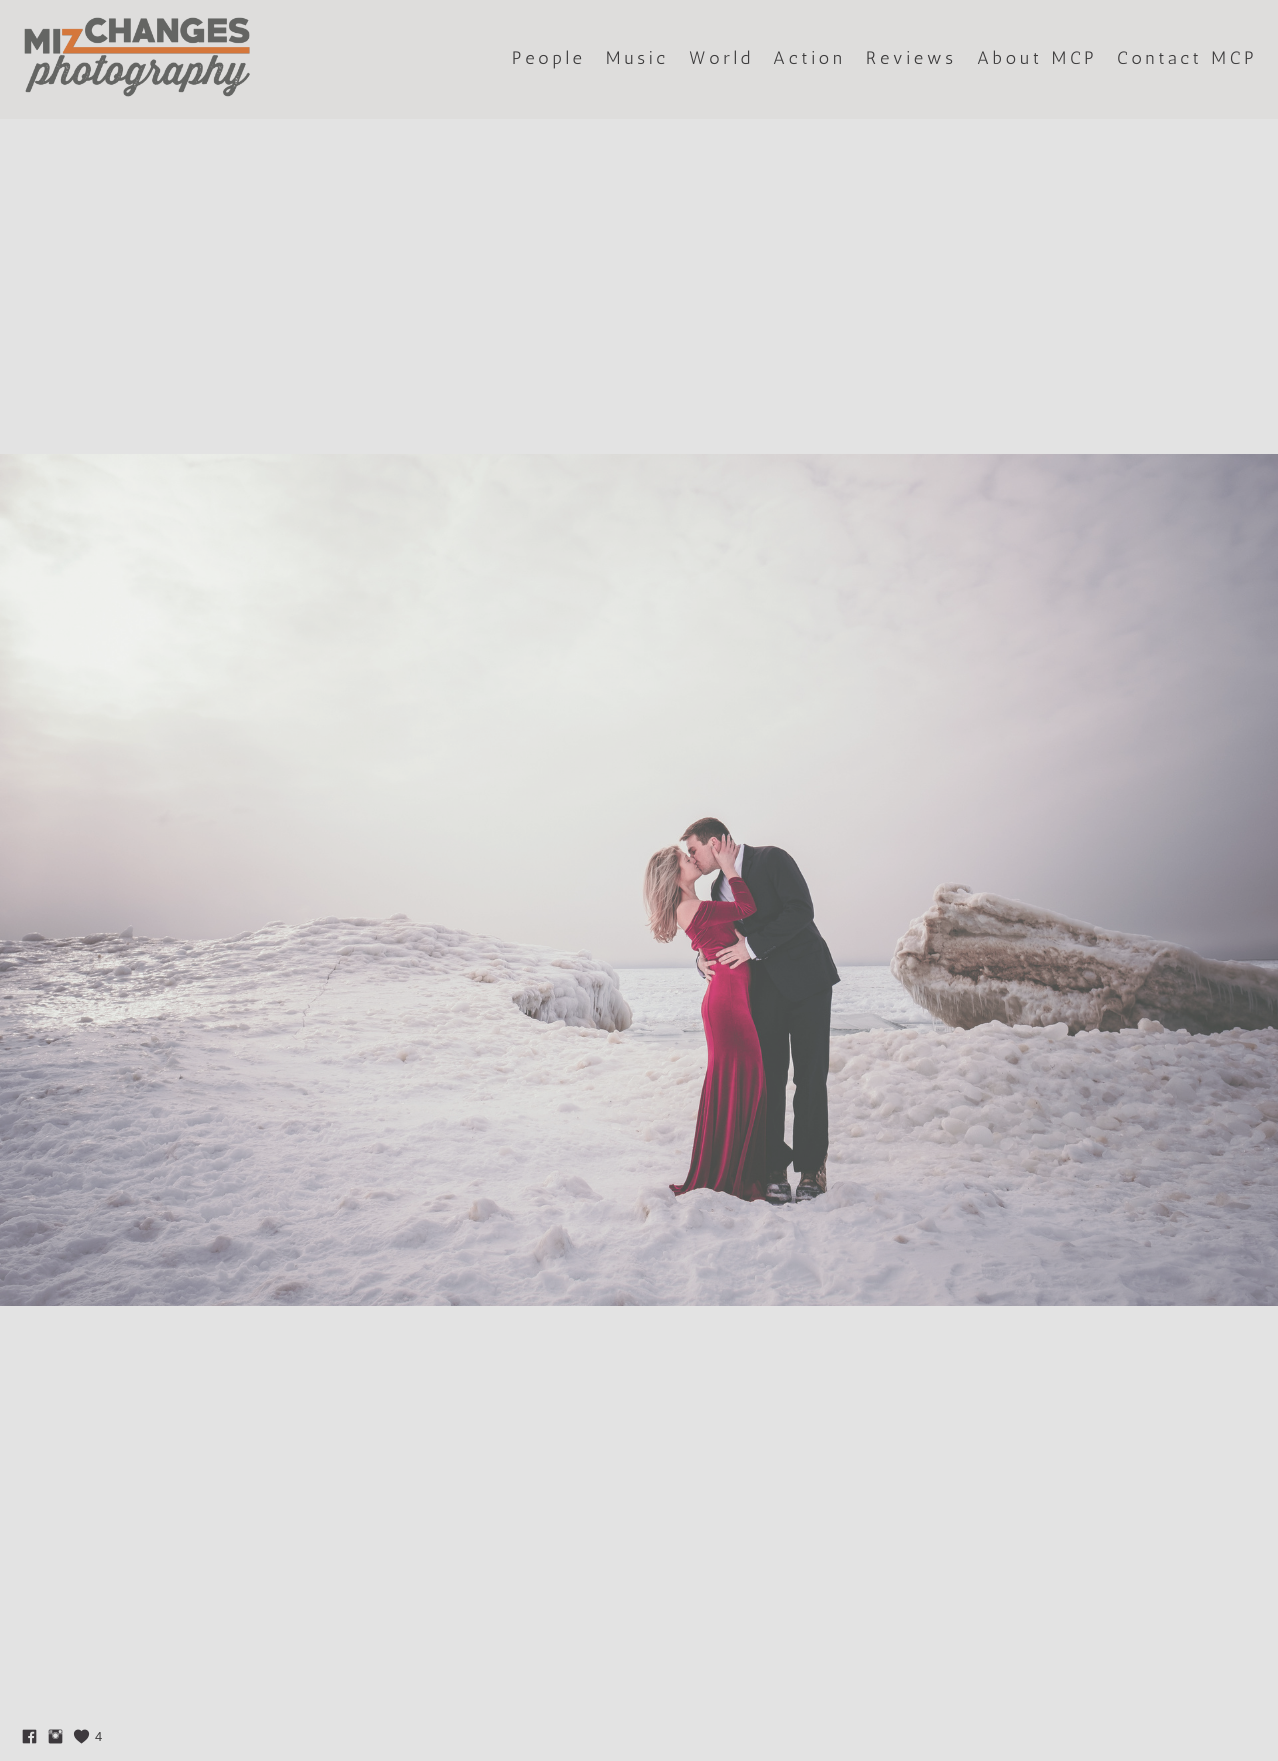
#include <cairo.h>
#include <math.h>
#include <stddef.h>

typedef struct { double x, y; const char *s; } line_t;

static void ink(cairo_t *ctx, unsigned color) {
    cairo_set_source_rgb(ctx, (color >> 16) / 255.0, (color >> 8 & 255) / 255.0, (color & 255) / 255.0);
}

static void write_spaced(cairo_t *ctx, double x, double y, const char *s, double letter, double word) {
    cairo_move_to(ctx, x, y);
    while (*s) {
        char ch[5] = {0};
        int n = 0;
        do ch[n++] = *s++; while ((*s & 0xC0) == 0x80);
        cairo_show_text(ctx, ch);
        cairo_rel_move_to(ctx, letter + word * (*ch == ' '), 0);
    }
}

static void paste(cairo_t *ctx, const char *path, double x, double y, double w, double h) {
    cairo_surface_t *image = cairo_image_surface_create_from_png(path);
    cairo_save(ctx);
    cairo_set_source_surface(ctx, image, x, y);
    cairo_rectangle(ctx, x, y, w, h);
    cairo_fill(ctx);
    cairo_restore(ctx);
    cairo_surface_destroy(image);
}

int main(void) {
    cairo_surface_t *surface = cairo_image_surface_create(CAIRO_FORMAT_RGB24, 1278, 1761);
    cairo_t *ctx = cairo_create(surface);
    cairo_font_options_t *options = cairo_font_options_create();
    cairo_font_options_set_hint_metrics(options, CAIRO_HINT_METRICS_OFF);
    cairo_font_options_set_hint_style(options, CAIRO_HINT_STYLE_NONE);
    cairo_set_font_options(ctx, options);
    cairo_set_miter_limit(ctx, 4);
    ink(ctx, 0xE3E3E3);
    cairo_paint(ctx);
    ink(ctx, 0xDEDDDC);
    cairo_rectangle(ctx, 0, 0, 1278, 119);
    cairo_fill(ctx);
    paste(ctx, "media/1.png", 24, 17, 226, 80);
    cairo_select_font_face(ctx, "Antic", CAIRO_FONT_SLANT_NORMAL, CAIRO_FONT_WEIGHT_NORMAL);
    cairo_set_font_size(ctx, 18);
    ink(ctx, 0x3D3C3D);
    {
        static const line_t items[] = {
            {512, 64, "People"},
            {606, 64, "Music"},
            {689, 64, "World"},
            {773, 64, "Action"},
            {866, 64, "Reviews"},
            {977, 64, "About MCP"},
            {1117, 64, "Contact MCP"},
        };
        for (size_t i = 0; i < sizeof items / sizeof *items; i++) {
            write_spaced(ctx, items[i].x, items[i].y, items[i].s, 3.75, 0);
        }
    }
    paste(ctx, "media/2.png", 0, 454, 1278, 852);
    paste(ctx, "media/3.png", 22, 1729, 15, 15);
    paste(ctx, "media/4.png", 48, 1729, 15, 15);
    paste(ctx, "media/5.png", 73, 1729, 17, 15);
    cairo_select_font_face(ctx, "Liberation Sans", CAIRO_FONT_SLANT_NORMAL, CAIRO_FONT_WEIGHT_NORMAL);
    cairo_set_font_size(ctx, 13);
    cairo_move_to(ctx, 95, 1741);
    cairo_show_text(ctx, "4");
    cairo_surface_write_to_png(surface, "image.png");
    cairo_font_options_destroy(options);
    cairo_destroy(ctx);
    cairo_surface_destroy(surface);
    return 0;
}
